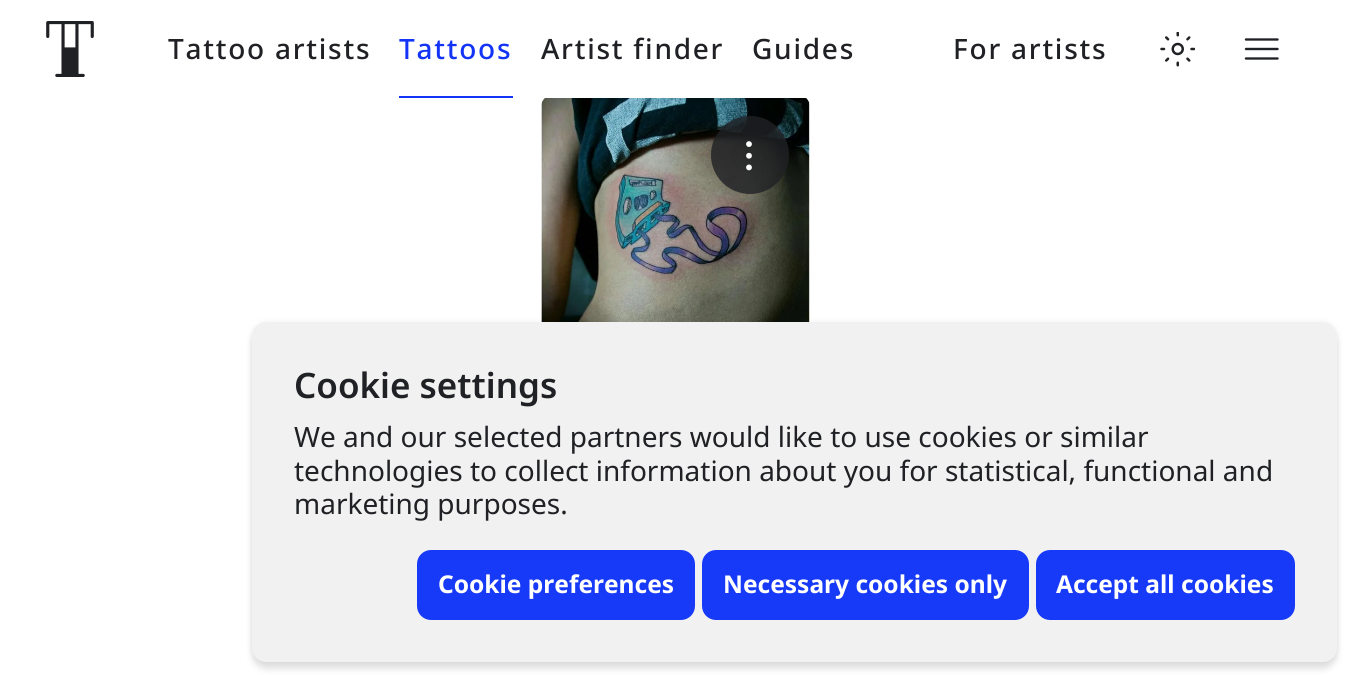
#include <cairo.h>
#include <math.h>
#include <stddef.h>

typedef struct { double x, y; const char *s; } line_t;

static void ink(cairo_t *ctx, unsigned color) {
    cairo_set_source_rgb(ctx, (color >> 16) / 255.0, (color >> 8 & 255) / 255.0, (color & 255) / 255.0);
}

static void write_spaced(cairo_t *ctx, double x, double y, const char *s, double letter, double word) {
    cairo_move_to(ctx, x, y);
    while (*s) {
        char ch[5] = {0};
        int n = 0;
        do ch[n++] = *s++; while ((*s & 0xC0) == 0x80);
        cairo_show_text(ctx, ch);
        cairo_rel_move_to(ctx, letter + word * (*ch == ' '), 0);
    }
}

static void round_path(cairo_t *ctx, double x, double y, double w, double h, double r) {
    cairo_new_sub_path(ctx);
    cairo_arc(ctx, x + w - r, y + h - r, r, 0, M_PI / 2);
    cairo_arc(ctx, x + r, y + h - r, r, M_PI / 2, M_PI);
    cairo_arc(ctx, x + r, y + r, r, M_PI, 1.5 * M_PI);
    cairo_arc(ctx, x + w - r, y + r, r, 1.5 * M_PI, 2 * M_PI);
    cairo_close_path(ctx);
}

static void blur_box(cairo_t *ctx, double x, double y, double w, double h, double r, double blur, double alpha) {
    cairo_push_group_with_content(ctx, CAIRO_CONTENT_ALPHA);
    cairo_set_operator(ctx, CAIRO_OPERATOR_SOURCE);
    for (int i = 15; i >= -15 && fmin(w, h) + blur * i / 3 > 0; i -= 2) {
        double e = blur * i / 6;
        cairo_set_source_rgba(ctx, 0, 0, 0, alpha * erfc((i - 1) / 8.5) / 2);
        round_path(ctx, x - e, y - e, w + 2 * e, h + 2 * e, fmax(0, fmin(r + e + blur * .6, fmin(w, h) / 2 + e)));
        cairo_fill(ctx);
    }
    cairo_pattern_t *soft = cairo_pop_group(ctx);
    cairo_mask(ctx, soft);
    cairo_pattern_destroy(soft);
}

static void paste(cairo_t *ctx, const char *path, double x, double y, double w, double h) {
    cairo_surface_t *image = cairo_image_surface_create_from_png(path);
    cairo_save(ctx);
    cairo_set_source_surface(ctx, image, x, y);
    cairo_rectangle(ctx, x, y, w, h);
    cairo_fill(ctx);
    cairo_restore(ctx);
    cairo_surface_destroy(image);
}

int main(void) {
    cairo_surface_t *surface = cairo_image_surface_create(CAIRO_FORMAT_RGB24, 1350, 675);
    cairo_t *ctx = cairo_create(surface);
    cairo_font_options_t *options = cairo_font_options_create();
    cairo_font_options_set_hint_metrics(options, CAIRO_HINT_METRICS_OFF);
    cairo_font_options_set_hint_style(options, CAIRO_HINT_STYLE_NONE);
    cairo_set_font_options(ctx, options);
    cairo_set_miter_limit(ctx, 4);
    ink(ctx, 0xFFFFFF);
    cairo_paint(ctx);
    paste(ctx, "media/1.png", 46, 21, 48, 56);
    cairo_select_font_face(ctx, "Noto Sans Medium", CAIRO_FONT_SLANT_NORMAL, CAIRO_FONT_WEIGHT_NORMAL);
    cairo_set_font_size(ctx, 28);
    ink(ctx, 0x202125);
    write_spaced(ctx, 168, 59, "Tattoo artists", 1.75, 0);
    ink(ctx, 0x1334F7);
    write_spaced(ctx, 399, 59, "Tattoos", 1.75, 0);
    cairo_rectangle(ctx, 399, 96, 114, 2);
    cairo_fill(ctx);
    ink(ctx, 0x202125);
    {
        static const line_t items[] = {
            {541, 59, "Artist finder"},
            {752, 59, "Guides"},
            {953, 59, "For artists"},
        };
        for (size_t i = 0; i < sizeof items / sizeof *items; i++) {
            write_spaced(ctx, items[i].x, items[i].y, items[i].s, 1.75, 0);
        }
    }
    paste(ctx, "media/2.png", 1160, 32, 35, 35);
    cairo_new_path(ctx);
    cairo_move_to(ctx, 1246, 58.5);
    cairo_line_to(ctx, 1277.5, 58.5);
    cairo_move_to(ctx, 1246, 49);
    cairo_line_to(ctx, 1277.5, 49);
    cairo_move_to(ctx, 1246, 39.5);
    cairo_line_to(ctx, 1277.5, 39.5);
    cairo_set_line_width(ctx, 2.4);
    cairo_set_line_cap(ctx, CAIRO_LINE_CAP_ROUND);
    cairo_set_line_join(ctx, CAIRO_LINE_JOIN_ROUND);
    cairo_stroke(ctx);
    paste(ctx, "media/3.png", 541, 98, 269, 224);
    cairo_set_source_rgba(ctx, 0.125, 0.129, 0.145, 0.8);
    cairo_arc(ctx, 750, 155, 39, 0, 2 * M_PI);
    cairo_fill(ctx);
    paste(ctx, "media/4.png", 746, 141, 6, 30);
    ink(ctx, 0x000000);
    blur_box(ctx, 252, 322, 1085, 340, 14, 3.5, 0.06);
    blur_box(ctx, 252, 329, 1085, 340, 14, 3.5, 0.12);
    ink(ctx, 0xF1F1F1);
    round_path(ctx, 252, 322, 1085, 340, 14);
    cairo_fill(ctx);
    cairo_select_font_face(ctx, "Noto Sans SemiBold", CAIRO_FONT_SLANT_NORMAL, CAIRO_FONT_WEIGHT_NORMAL);
    cairo_set_font_size(ctx, 35);
    ink(ctx, 0x202125);
    cairo_move_to(ctx, 294, 398);
    cairo_show_text(ctx, "Cookie settings");
    cairo_select_font_face(ctx, "Noto Sans", CAIRO_FONT_SLANT_NORMAL, CAIRO_FONT_WEIGHT_NORMAL);
    cairo_set_font_size(ctx, 28);
    {
        static const line_t items[] = {
            {294, 447, "We and our selected partners would like to use cookies or similar"},
            {294, 481, "technologies to collect information about you for statistical, functional and"},
            {294, 514, "marketing purposes."},
        };
        for (size_t i = 0; i < sizeof items / sizeof *items; i++) {
            cairo_move_to(ctx, items[i].x, items[i].y);
            cairo_show_text(ctx, items[i].s);
        }
    }
    ink(ctx, 0x173AF8);
    round_path(ctx, 417, 550, 278, 70, 14);
    cairo_fill(ctx);
    cairo_select_font_face(ctx, "Noto Sans", CAIRO_FONT_SLANT_NORMAL, CAIRO_FONT_WEIGHT_BOLD);
    cairo_set_font_size(ctx, 24.5);
    ink(ctx, 0xFFFFFF);
    cairo_move_to(ctx, 438, 593);
    cairo_show_text(ctx, "Cookie preferences");
    ink(ctx, 0x173AF8);
    round_path(ctx, 702, 550, 327, 70, 14);
    cairo_fill(ctx);
    ink(ctx, 0xFFFFFF);
    cairo_move_to(ctx, 723, 593);
    cairo_show_text(ctx, "Necessary cookies only");
    ink(ctx, 0x173AF8);
    round_path(ctx, 1036, 550, 259, 70, 14);
    cairo_fill(ctx);
    ink(ctx, 0xFFFFFF);
    cairo_move_to(ctx, 1056, 593);
    cairo_show_text(ctx, "Accept all cookies");
    cairo_surface_write_to_png(surface, "image.png");
    cairo_font_options_destroy(options);
    cairo_destroy(ctx);
    cairo_surface_destroy(surface);
    return 0;
}
